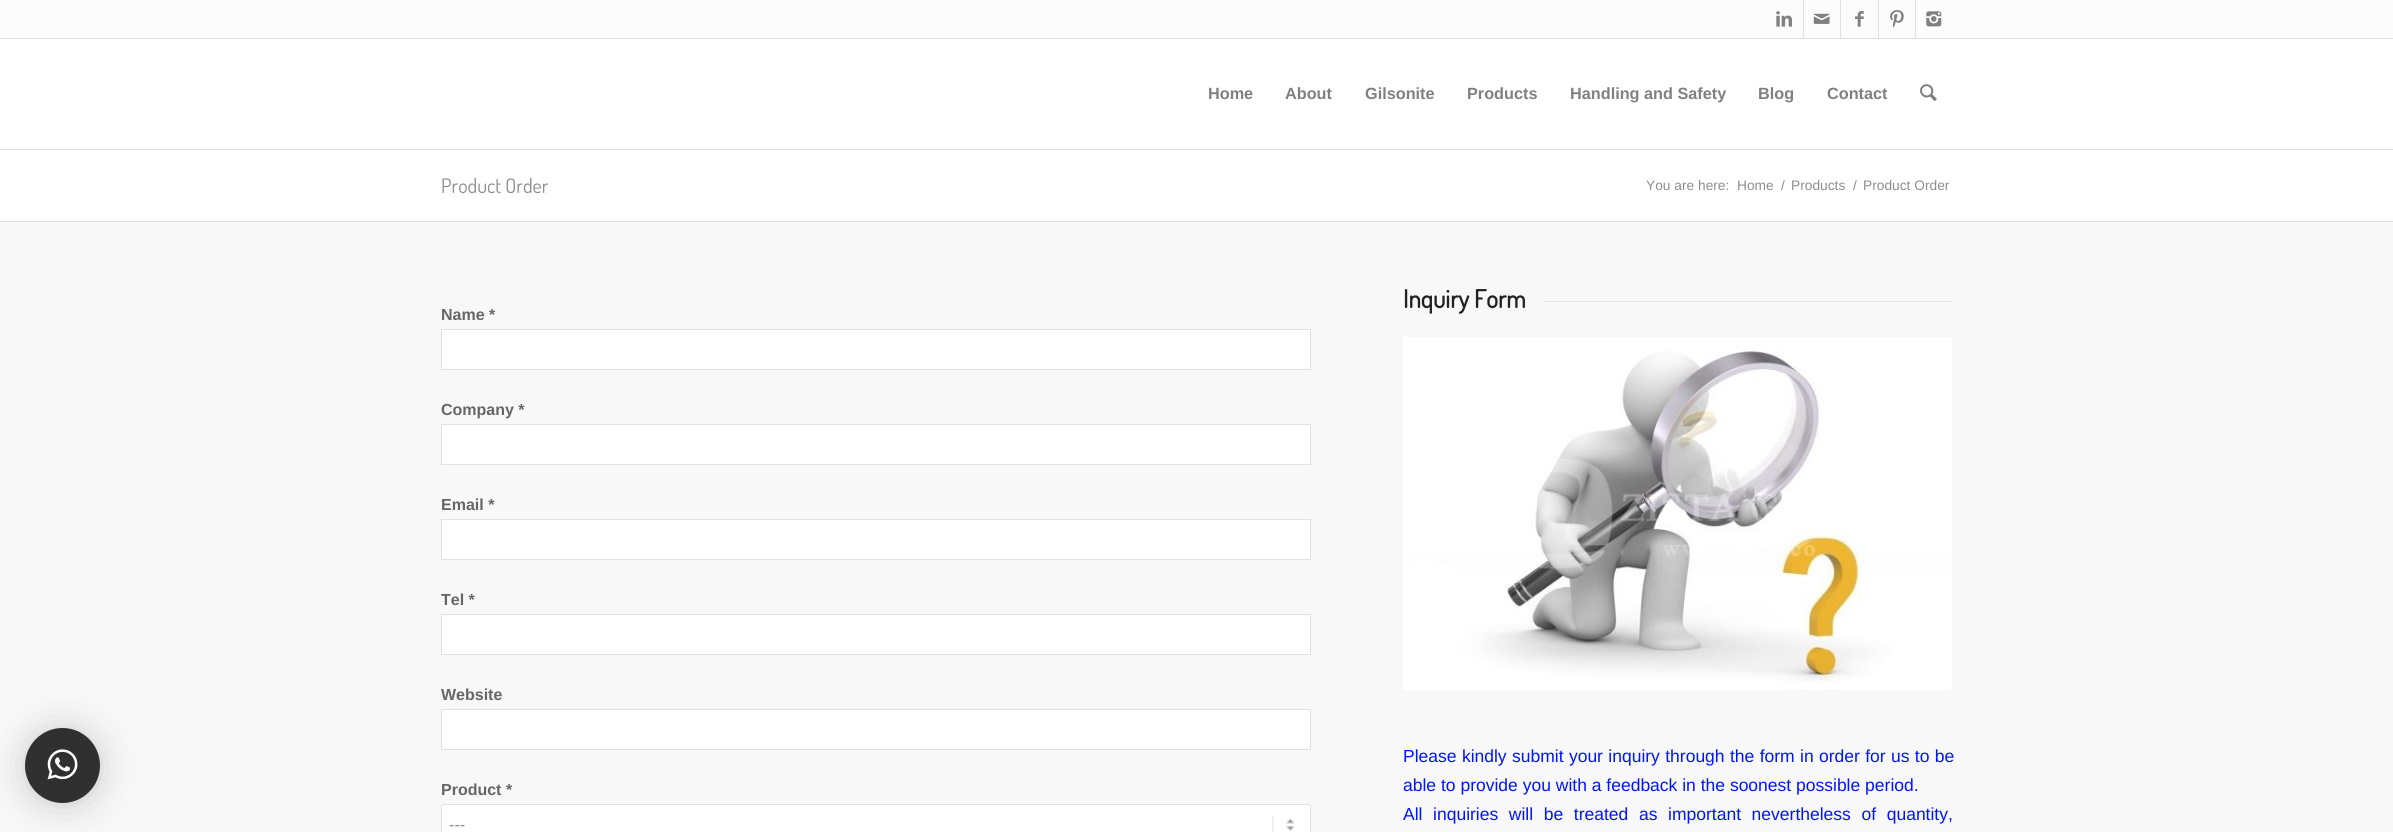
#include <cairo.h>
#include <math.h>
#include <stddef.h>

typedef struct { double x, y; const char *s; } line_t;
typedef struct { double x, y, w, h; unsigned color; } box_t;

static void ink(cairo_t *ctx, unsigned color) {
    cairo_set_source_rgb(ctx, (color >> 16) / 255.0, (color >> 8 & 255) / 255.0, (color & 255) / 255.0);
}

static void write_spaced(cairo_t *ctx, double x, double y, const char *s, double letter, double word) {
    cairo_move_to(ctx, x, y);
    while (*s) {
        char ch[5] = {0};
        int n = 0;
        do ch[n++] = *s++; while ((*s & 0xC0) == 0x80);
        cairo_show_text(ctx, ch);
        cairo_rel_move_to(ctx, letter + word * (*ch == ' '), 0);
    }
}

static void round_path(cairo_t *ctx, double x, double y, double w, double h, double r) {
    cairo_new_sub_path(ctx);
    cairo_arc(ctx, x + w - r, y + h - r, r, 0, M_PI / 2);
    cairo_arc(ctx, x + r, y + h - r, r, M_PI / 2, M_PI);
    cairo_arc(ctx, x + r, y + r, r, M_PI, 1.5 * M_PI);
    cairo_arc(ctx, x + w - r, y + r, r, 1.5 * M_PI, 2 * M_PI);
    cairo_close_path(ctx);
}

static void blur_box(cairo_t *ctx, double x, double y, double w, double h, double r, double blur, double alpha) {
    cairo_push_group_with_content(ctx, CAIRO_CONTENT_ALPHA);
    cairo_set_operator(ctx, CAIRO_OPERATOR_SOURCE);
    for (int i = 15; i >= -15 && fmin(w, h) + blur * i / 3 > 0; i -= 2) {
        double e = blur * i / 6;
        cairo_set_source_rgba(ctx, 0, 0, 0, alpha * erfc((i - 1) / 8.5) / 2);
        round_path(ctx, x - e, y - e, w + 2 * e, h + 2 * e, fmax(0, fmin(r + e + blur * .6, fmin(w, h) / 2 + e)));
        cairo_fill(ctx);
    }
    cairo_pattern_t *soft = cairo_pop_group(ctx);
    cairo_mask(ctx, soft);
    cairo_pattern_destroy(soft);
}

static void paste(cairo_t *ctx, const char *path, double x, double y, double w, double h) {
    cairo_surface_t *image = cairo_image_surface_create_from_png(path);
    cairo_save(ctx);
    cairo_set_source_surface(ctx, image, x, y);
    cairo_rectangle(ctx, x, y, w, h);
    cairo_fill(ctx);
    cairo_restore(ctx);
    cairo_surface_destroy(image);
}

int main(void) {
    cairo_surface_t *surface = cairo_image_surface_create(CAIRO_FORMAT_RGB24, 2393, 832);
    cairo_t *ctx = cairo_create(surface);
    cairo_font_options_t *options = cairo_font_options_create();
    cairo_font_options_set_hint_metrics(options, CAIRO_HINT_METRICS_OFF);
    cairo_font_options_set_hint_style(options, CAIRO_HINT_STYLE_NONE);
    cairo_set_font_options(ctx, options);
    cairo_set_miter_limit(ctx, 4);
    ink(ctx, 0xFFFFFF);
    cairo_paint(ctx);
    ink(ctx, 0xF8F8F8);
    cairo_rectangle(ctx, 0, 222, 2393, 610);
    cairo_fill(ctx);
    ink(ctx, 0x000000);
    blur_box(ctx, 25, 730, 75, 75, 37.5, 20, 0.16);
    blur_box(ctx, 25, 729, 75, 75, 37.5, 4, 0.06);
    ink(ctx, 0x303030);
    cairo_arc(ctx, 62.5, 765.5, 37.5, 0, 2 * M_PI);
    cairo_fill(ctx);
    paste(ctx, "media/1.png", 47, 749, 31, 31);
    {
        static const box_t items[] = {
            {0, 0, 2393, 38, 0xFCFCFC},
            {0, 38, 2393, 1, 0xE1E1E1},
            {1803, 0, 1, 38, 0xE1E1E1},
        };
        for (size_t i = 0; i < sizeof items / sizeof *items; i++) {
            ink(ctx, items[i].color);
            cairo_rectangle(ctx, items[i].x, items[i].y, items[i].w, items[i].h);
            cairo_fill(ctx);
        }
    }
    paste(ctx, "media/2.png", 1776, 11, 16, 16);
    cairo_rectangle(ctx, 1840, 0, 1, 38);
    cairo_fill(ctx);
    paste(ctx, "media/3.png", 1813, 13, 17, 11);
    cairo_rectangle(ctx, 1878, 0, 1, 38);
    cairo_fill(ctx);
    paste(ctx, "media/4.png", 1855, 11, 9, 16);
    cairo_rectangle(ctx, 1915, 0, 1, 38);
    cairo_fill(ctx);
    paste(ctx, "media/5.png", 1890, 10, 14, 18);
    paste(ctx, "media/6.png", 1926, 11, 16, 16);
    cairo_rectangle(ctx, 0, 149, 2393, 1);
    cairo_fill(ctx);
    cairo_select_font_face(ctx, "Liberation Sans", CAIRO_FONT_SLANT_NORMAL, CAIRO_FONT_WEIGHT_BOLD);
    cairo_set_font_size(ctx, 16.25);
    ink(ctx, 0x808080);
    {
        static const line_t items[] = {
            {1208, 99, "Home"},
            {1285, 99, "About"},
            {1365, 99, "Gilsonite"},
            {1467, 99, "Products"},
            {1570, 99, "Handling and Safety"},
            {1758, 99, "Blog"},
            {1827, 99, "Contact"},
        };
        for (size_t i = 0; i < sizeof items / sizeof *items; i++) {
            cairo_move_to(ctx, items[i].x, items[i].y);
            cairo_show_text(ctx, items[i].s);
        }
    }
    paste(ctx, "media/7.png", 1920, 84, 17, 17);
    cairo_select_font_face(ctx, "Dosis", CAIRO_FONT_SLANT_NORMAL, CAIRO_FONT_WEIGHT_NORMAL);
    cairo_set_font_size(ctx, 20);
    ink(ctx, 0x8D8D8D);
    cairo_move_to(ctx, 441, 193);
    cairo_show_text(ctx, "Product Order");
    cairo_select_font_face(ctx, "Liberation Sans", CAIRO_FONT_SLANT_NORMAL, CAIRO_FONT_WEIGHT_NORMAL);
    cairo_set_font_size(ctx, 13.75);
    {
        static const line_t items[] = {
            {1646, 190, "You are here:"},
            {1737, 190, "Home"},
            {1781, 190, "/"},
            {1791, 190, "Products"},
            {1853, 190, "/"},
            {1863, 190, "Product Order"},
        };
        for (size_t i = 0; i < sizeof items / sizeof *items; i++) {
            cairo_move_to(ctx, items[i].x, items[i].y);
            cairo_show_text(ctx, items[i].s);
        }
    }
    ink(ctx, 0xE1E1E1);
    cairo_rectangle(ctx, 0, 221, 2393, 1);
    cairo_fill(ctx);
    cairo_select_font_face(ctx, "Liberation Sans", CAIRO_FONT_SLANT_NORMAL, CAIRO_FONT_WEIGHT_BOLD);
    cairo_set_font_size(ctx, 16);
    ink(ctx, 0x666666);
    cairo_move_to(ctx, 441, 320);
    cairo_show_text(ctx, "Name *");
    ink(ctx, 0xFFFFFF);
    cairo_rectangle(ctx, 441.5, 329.5, 869, 40);
    cairo_fill_preserve(ctx);
    ink(ctx, 0xE1E1E1);
    cairo_set_line_width(ctx, 1);
    cairo_stroke(ctx);
    ink(ctx, 0x666666);
    cairo_move_to(ctx, 441, 415);
    cairo_show_text(ctx, "Company *");
    ink(ctx, 0xFFFFFF);
    cairo_rectangle(ctx, 441.5, 424.5, 869, 40);
    cairo_fill_preserve(ctx);
    ink(ctx, 0xE1E1E1);
    cairo_stroke(ctx);
    ink(ctx, 0x666666);
    cairo_move_to(ctx, 441, 510);
    cairo_show_text(ctx, "Email *");
    ink(ctx, 0xFFFFFF);
    cairo_rectangle(ctx, 441.5, 519.5, 869, 40);
    cairo_fill_preserve(ctx);
    ink(ctx, 0xE1E1E1);
    cairo_stroke(ctx);
    ink(ctx, 0x666666);
    cairo_move_to(ctx, 441, 605);
    cairo_show_text(ctx, "Tel *");
    ink(ctx, 0xFFFFFF);
    cairo_rectangle(ctx, 441.5, 614.5, 869, 40);
    cairo_fill_preserve(ctx);
    ink(ctx, 0xE1E1E1);
    cairo_stroke(ctx);
    ink(ctx, 0x666666);
    cairo_move_to(ctx, 441, 700);
    cairo_show_text(ctx, "Website");
    ink(ctx, 0xFFFFFF);
    cairo_rectangle(ctx, 441.5, 709.5, 869, 40);
    cairo_fill_preserve(ctx);
    ink(ctx, 0xE1E1E1);
    cairo_stroke(ctx);
    ink(ctx, 0x666666);
    cairo_move_to(ctx, 441, 795);
    cairo_show_text(ctx, "Product *");
    ink(ctx, 0xFFFFFF);
    round_path(ctx, 441, 804, 870, 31, 2.5);
    cairo_fill(ctx);
    paste(ctx, "media/8.png", 1272, 816, 22, 16);
    round_path(ctx, 441.5, 804.5, 869, 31, 2);
    ink(ctx, 0xE1E1E1);
    cairo_stroke(ctx);
    cairo_select_font_face(ctx, "Liberation Sans", CAIRO_FONT_SLANT_NORMAL, CAIRO_FONT_WEIGHT_NORMAL);
    cairo_set_font_size(ctx, 16.25);
    ink(ctx, 0x8D8D8D);
    cairo_move_to(ctx, 449, 830);
    cairo_show_text(ctx, "---");
    cairo_select_font_face(ctx, "Dosis", CAIRO_FONT_SLANT_NORMAL, CAIRO_FONT_WEIGHT_BOLD);
    cairo_set_font_size(ctx, 25);
    ink(ctx, 0x222222);
    cairo_move_to(ctx, 1403, 308);
    cairo_show_text(ctx, "Inquiry Form");
    ink(ctx, 0xE2E2E2);
    cairo_rectangle(ctx, 1544, 301, 409, 1);
    cairo_fill(ctx);
    paste(ctx, "media/9.png", 1403, 337, 549, 353);
    cairo_select_font_face(ctx, "Liberation Sans", CAIRO_FONT_SLANT_NORMAL, CAIRO_FONT_WEIGHT_NORMAL);
    cairo_set_font_size(ctx, 17.5);
    ink(ctx, 0x0015FF);
    write_spaced(ctx, 1403, 762, "Please kindly submit your inquiry through the form in order for us to be", 0, 0.5);
    cairo_move_to(ctx, 1403, 791);
    cairo_show_text(ctx, "able to provide you with a feedback in the soonest possible period.");
    write_spaced(ctx, 1403, 820, "All inquiries will be treated as important nevertheless of quantity,", 0, 5.75);
    cairo_surface_write_to_png(surface, "image.png");
    cairo_font_options_destroy(options);
    cairo_destroy(ctx);
    cairo_surface_destroy(surface);
    return 0;
}
